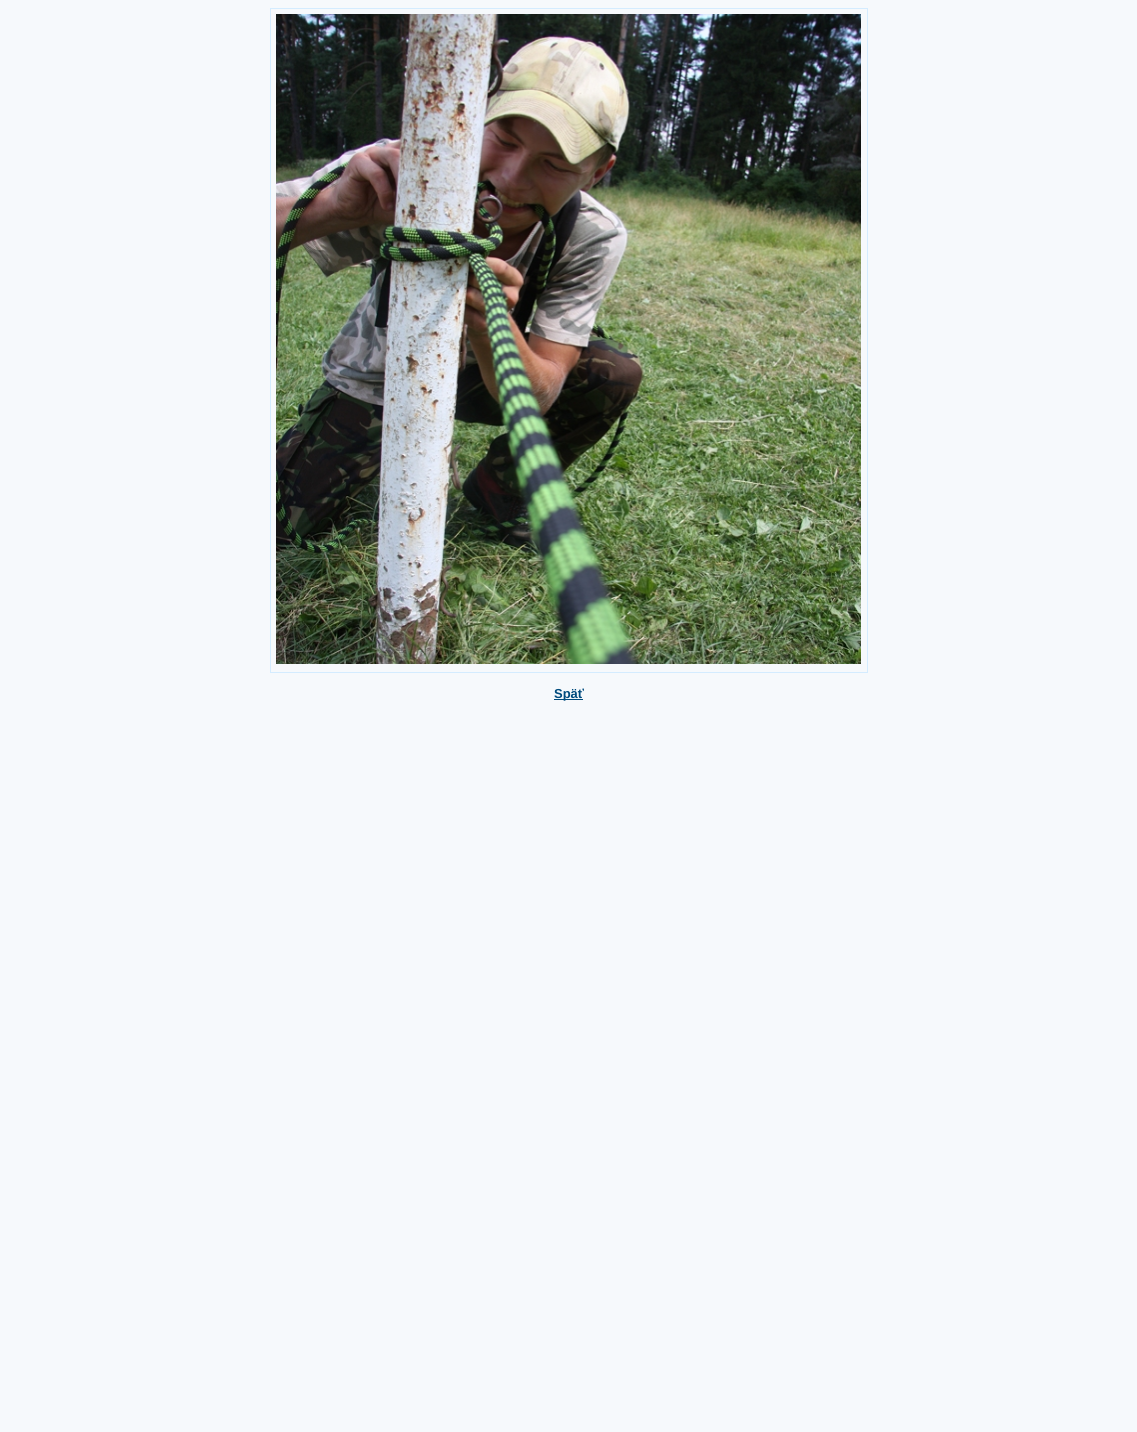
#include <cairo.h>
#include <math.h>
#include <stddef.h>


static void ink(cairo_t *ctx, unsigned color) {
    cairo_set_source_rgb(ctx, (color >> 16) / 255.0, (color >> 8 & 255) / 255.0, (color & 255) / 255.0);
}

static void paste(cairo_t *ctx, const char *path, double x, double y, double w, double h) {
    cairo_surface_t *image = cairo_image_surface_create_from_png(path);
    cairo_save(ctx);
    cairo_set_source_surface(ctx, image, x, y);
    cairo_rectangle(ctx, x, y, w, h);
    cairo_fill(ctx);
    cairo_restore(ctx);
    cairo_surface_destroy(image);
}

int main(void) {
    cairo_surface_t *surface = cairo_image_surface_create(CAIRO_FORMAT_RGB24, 1137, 1432);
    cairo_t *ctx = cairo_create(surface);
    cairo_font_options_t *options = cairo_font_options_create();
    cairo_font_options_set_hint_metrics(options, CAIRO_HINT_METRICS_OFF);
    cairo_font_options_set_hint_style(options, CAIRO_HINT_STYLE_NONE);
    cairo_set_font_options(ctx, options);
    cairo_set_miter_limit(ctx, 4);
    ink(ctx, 0xF6F9FC);
    cairo_paint(ctx);
    cairo_rectangle(ctx, 270.5, 8.5, 597, 664);
    ink(ctx, 0xD4ECFF);
    cairo_set_line_width(ctx, 1);
    cairo_stroke(ctx);
    paste(ctx, "media/1.png", 276, 14, 585, 650);
    ink(ctx, 0x004B7D);
    cairo_rectangle(ctx, 554, 699, 29, 1);
    cairo_fill(ctx);
    cairo_select_font_face(ctx, "Liberation Sans", CAIRO_FONT_SLANT_NORMAL, CAIRO_FONT_WEIGHT_BOLD);
    cairo_set_font_size(ctx, 13);
    cairo_move_to(ctx, 554, 698);
    cairo_show_text(ctx, "Späť");
    cairo_surface_write_to_png(surface, "image.png");
    cairo_font_options_destroy(options);
    cairo_destroy(ctx);
    cairo_surface_destroy(surface);
    return 0;
}
